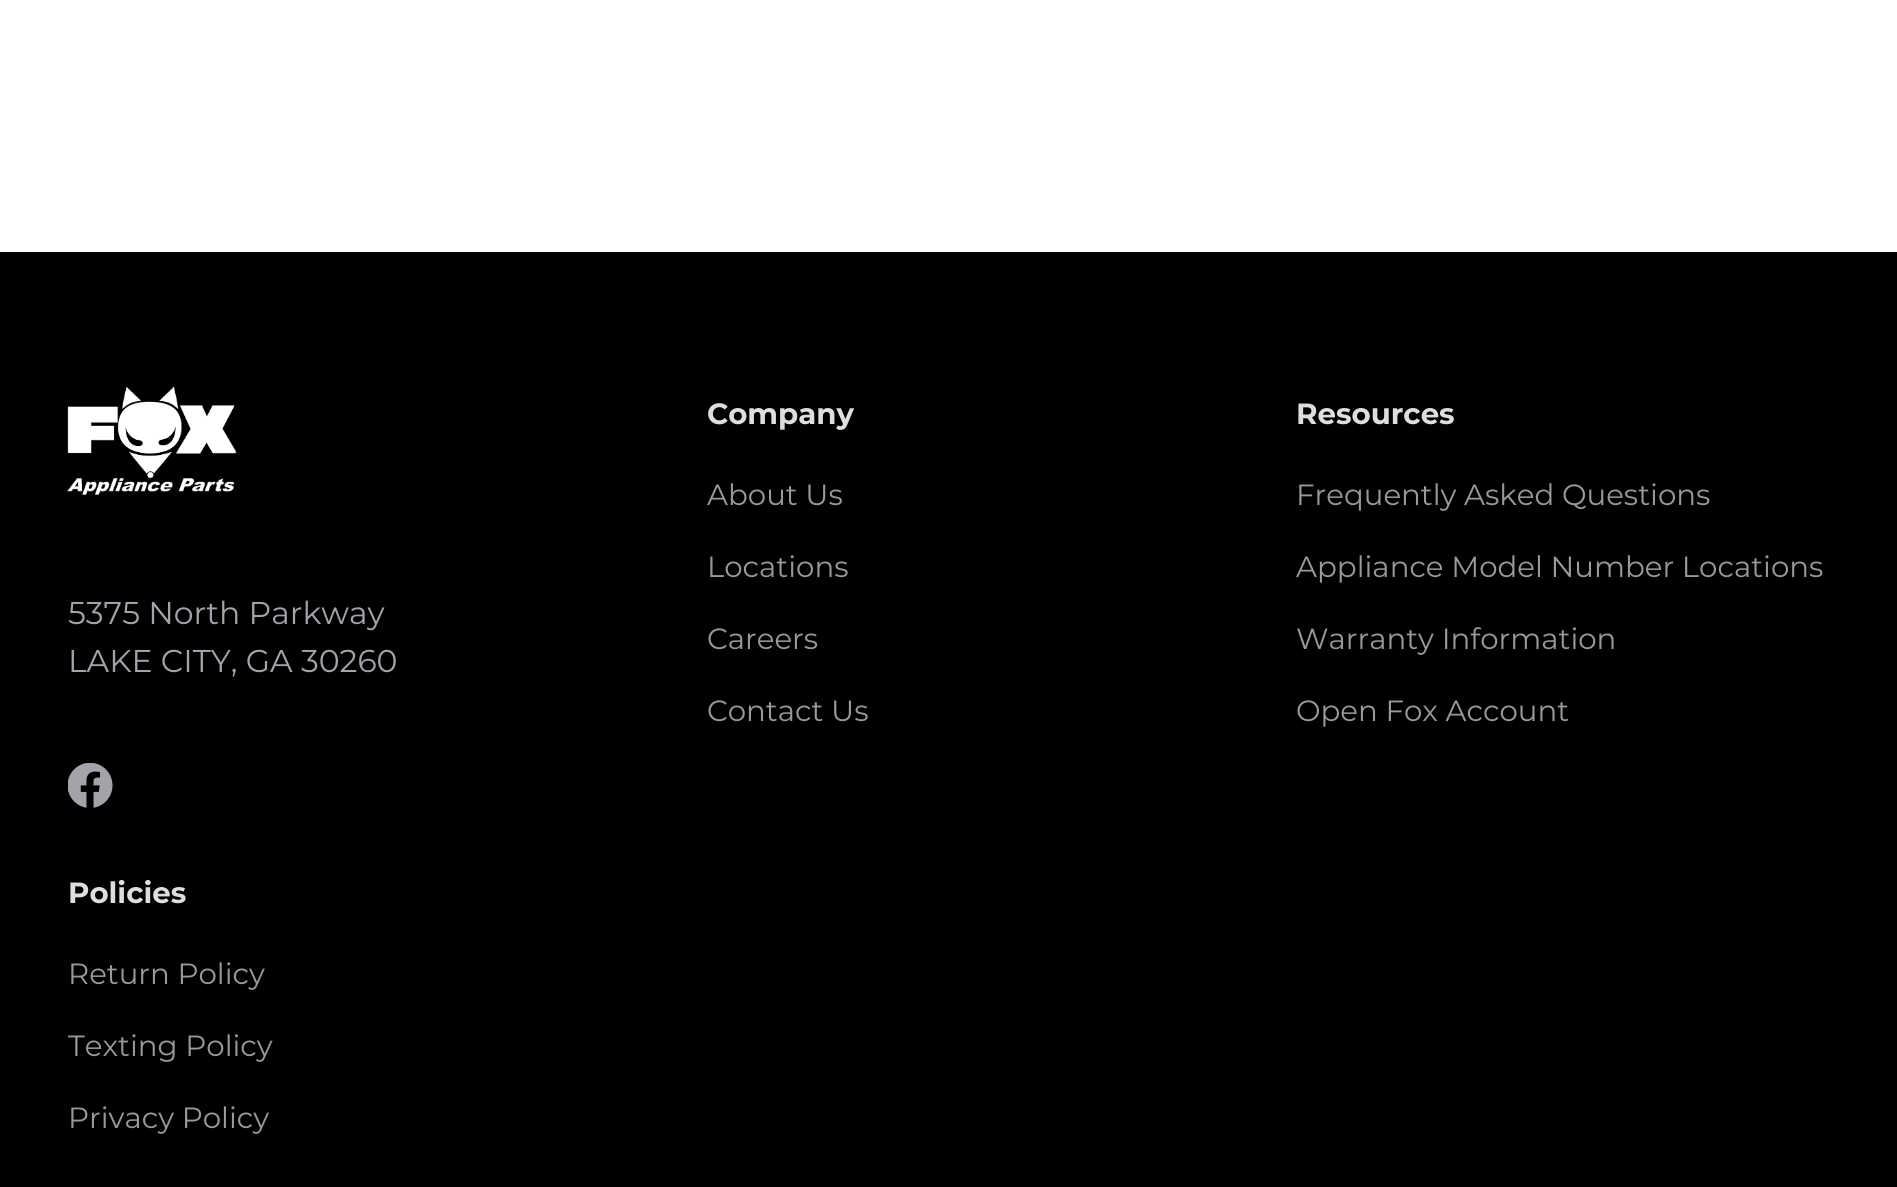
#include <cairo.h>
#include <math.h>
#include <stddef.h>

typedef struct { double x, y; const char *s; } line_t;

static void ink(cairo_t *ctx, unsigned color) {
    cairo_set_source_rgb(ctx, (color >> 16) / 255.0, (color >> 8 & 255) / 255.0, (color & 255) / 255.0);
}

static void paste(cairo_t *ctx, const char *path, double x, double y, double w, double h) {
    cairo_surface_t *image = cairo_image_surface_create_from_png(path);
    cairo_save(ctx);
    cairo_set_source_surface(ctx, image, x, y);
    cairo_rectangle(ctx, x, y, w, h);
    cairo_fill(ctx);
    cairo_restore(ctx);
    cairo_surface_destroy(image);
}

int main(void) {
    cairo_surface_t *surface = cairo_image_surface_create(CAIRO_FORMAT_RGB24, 1897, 1187);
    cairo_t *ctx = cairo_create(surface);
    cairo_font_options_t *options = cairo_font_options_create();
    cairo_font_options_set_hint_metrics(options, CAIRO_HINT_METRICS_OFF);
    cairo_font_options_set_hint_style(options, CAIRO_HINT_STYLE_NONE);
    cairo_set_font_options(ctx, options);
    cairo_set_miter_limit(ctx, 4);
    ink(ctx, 0xFFFFFF);
    cairo_paint(ctx);
    ink(ctx, 0x000000);
    cairo_rectangle(ctx, 0, 252, 1897, 935);
    cairo_fill(ctx);
    paste(ctx, "media/1.png", 67, 386, 170, 109);
    cairo_select_font_face(ctx, "Montserrat", CAIRO_FONT_SLANT_NORMAL, CAIRO_FONT_WEIGHT_NORMAL);
    cairo_set_font_size(ctx, 31.5);
    ink(ctx, 0xA2A4AA);
    cairo_move_to(ctx, 68, 624);
    cairo_show_text(ctx, "5375 North Parkway");
    cairo_move_to(ctx, 68, 672);
    cairo_show_text(ctx, "LAKE CITY, GA 30260");
    paste(ctx, "media/2.png", 68, 763, 45, 45);
    cairo_select_font_face(ctx, "Montserrat", CAIRO_FONT_SLANT_NORMAL, CAIRO_FONT_WEIGHT_BOLD);
    cairo_set_font_size(ctx, 29.25);
    ink(ctx, 0xDEDEDE);
    cairo_move_to(ctx, 707, 424);
    cairo_show_text(ctx, "Company");
    cairo_select_font_face(ctx, "Montserrat", CAIRO_FONT_SLANT_NORMAL, CAIRO_FONT_WEIGHT_NORMAL);
    ink(ctx, 0x999999);
    {
        static const line_t items[] = {
            {707, 505, "About Us"},
            {707, 577, "Locations"},
            {707, 649, "Careers"},
            {707, 721, "Contact Us"},
        };
        for (size_t i = 0; i < sizeof items / sizeof *items; i++) {
            cairo_move_to(ctx, items[i].x, items[i].y);
            cairo_show_text(ctx, items[i].s);
        }
    }
    cairo_select_font_face(ctx, "Montserrat", CAIRO_FONT_SLANT_NORMAL, CAIRO_FONT_WEIGHT_BOLD);
    ink(ctx, 0xDEDEDE);
    cairo_move_to(ctx, 1296, 424);
    cairo_show_text(ctx, "Resources");
    cairo_select_font_face(ctx, "Montserrat", CAIRO_FONT_SLANT_NORMAL, CAIRO_FONT_WEIGHT_NORMAL);
    ink(ctx, 0x999999);
    {
        static const line_t items[] = {
            {1296, 505, "Frequently Asked Questions"},
            {1296, 577, "Appliance Model Number Locations"},
            {1296, 649, "Warranty Information"},
            {1296, 721, "Open Fox Account"},
        };
        for (size_t i = 0; i < sizeof items / sizeof *items; i++) {
            cairo_move_to(ctx, items[i].x, items[i].y);
            cairo_show_text(ctx, items[i].s);
        }
    }
    cairo_select_font_face(ctx, "Montserrat", CAIRO_FONT_SLANT_NORMAL, CAIRO_FONT_WEIGHT_BOLD);
    ink(ctx, 0xDEDEDE);
    cairo_move_to(ctx, 68, 903);
    cairo_show_text(ctx, "Policies");
    cairo_select_font_face(ctx, "Montserrat", CAIRO_FONT_SLANT_NORMAL, CAIRO_FONT_WEIGHT_NORMAL);
    ink(ctx, 0x999999);
    {
        static const line_t items[] = {
            {68, 984, "Return Policy"},
            {68, 1056, "Texting Policy"},
            {68, 1128, "Privacy Policy"},
        };
        for (size_t i = 0; i < sizeof items / sizeof *items; i++) {
            cairo_move_to(ctx, items[i].x, items[i].y);
            cairo_show_text(ctx, items[i].s);
        }
    }
    cairo_surface_write_to_png(surface, "image.png");
    cairo_font_options_destroy(options);
    cairo_destroy(ctx);
    cairo_surface_destroy(surface);
    return 0;
}
